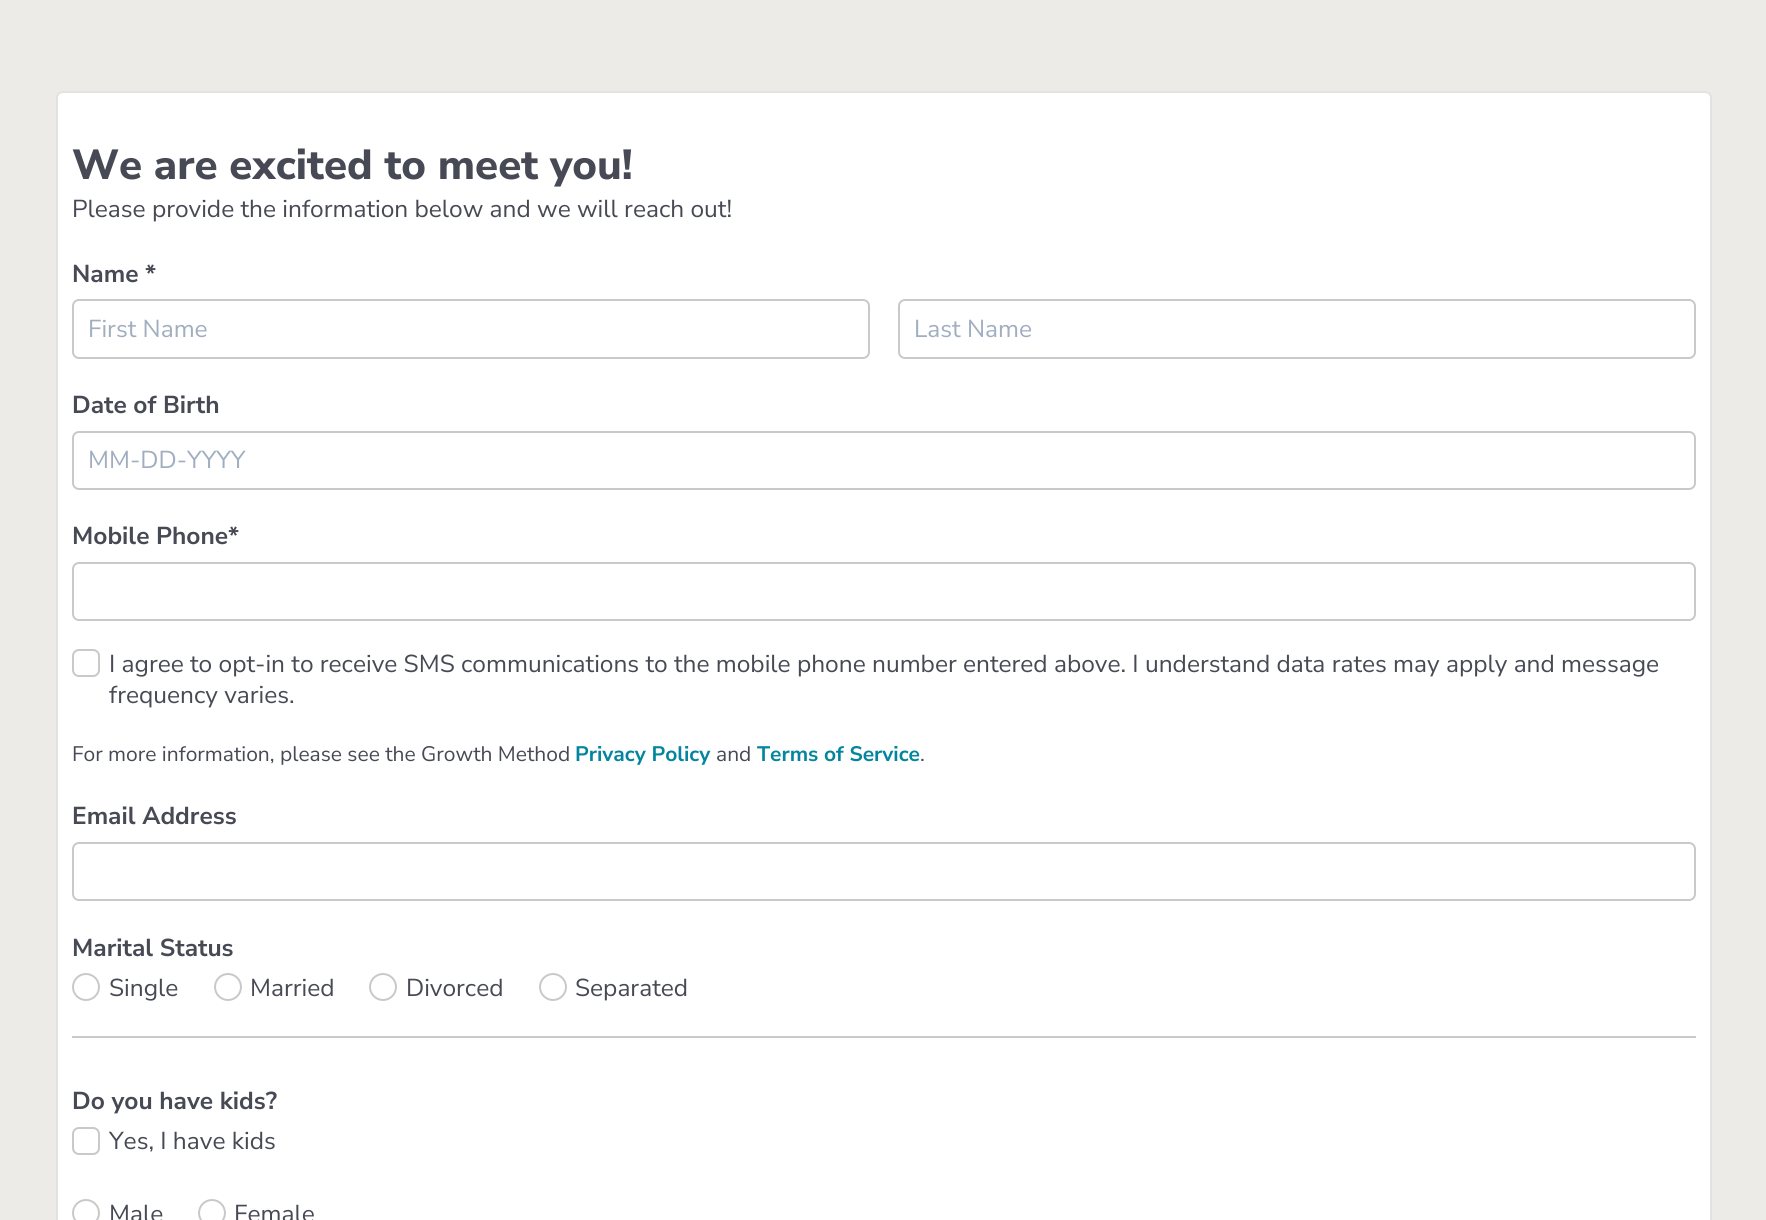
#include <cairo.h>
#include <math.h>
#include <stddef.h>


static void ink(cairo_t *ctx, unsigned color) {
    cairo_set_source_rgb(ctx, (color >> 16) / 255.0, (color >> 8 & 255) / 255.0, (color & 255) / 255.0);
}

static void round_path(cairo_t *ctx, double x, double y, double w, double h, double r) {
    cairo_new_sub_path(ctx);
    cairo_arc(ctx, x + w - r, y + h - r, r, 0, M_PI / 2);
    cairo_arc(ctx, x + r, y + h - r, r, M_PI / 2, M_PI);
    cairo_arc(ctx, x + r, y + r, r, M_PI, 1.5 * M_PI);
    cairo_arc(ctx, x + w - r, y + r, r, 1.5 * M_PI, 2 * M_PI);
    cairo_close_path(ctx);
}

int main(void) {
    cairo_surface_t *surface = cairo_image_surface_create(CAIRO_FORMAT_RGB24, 1766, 1220);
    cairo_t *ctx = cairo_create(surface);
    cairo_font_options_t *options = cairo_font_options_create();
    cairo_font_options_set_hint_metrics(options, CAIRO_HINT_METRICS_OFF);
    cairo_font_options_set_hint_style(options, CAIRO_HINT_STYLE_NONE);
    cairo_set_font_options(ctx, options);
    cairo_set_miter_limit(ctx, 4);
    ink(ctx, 0xECEBE8);
    cairo_paint(ctx);
    ink(ctx, 0xFFFFFF);
    round_path(ctx, 57, 92, 1654, 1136, 6);
    cairo_fill_preserve(ctx);
    ink(ctx, 0xE4E2DE);
    cairo_stroke(ctx);
    cairo_select_font_face(ctx, "Nunito Sans ExtraBold", CAIRO_FONT_SLANT_NORMAL, CAIRO_FONT_WEIGHT_NORMAL);
    cairo_set_font_size(ctx, 42);
    ink(ctx, 0x474A54);
    cairo_move_to(ctx, 72, 179);
    cairo_show_text(ctx, "We are excited to meet you!");
    cairo_select_font_face(ctx, "Nunito Sans", CAIRO_FONT_SLANT_NORMAL, CAIRO_FONT_WEIGHT_NORMAL);
    cairo_set_font_size(ctx, 24.5);
    cairo_move_to(ctx, 72, 217);
    cairo_show_text(ctx, "Please provide the information below and we will reach out!");
    cairo_select_font_face(ctx, "Nunito Sans", CAIRO_FONT_SLANT_NORMAL, CAIRO_FONT_WEIGHT_BOLD);
    cairo_move_to(ctx, 72, 282);
    cairo_show_text(ctx, "Name *");
    round_path(ctx, 73, 300, 796, 58, 6);
    ink(ctx, 0xCAC9CA);
    cairo_stroke(ctx);
    cairo_select_font_face(ctx, "Nunito Sans", CAIRO_FONT_SLANT_NORMAL, CAIRO_FONT_WEIGHT_NORMAL);
    ink(ctx, 0xA0AEC0);
    cairo_move_to(ctx, 88, 337);
    cairo_show_text(ctx, "First Name");
    round_path(ctx, 899, 300, 796, 58, 6);
    ink(ctx, 0xCAC9CA);
    cairo_stroke(ctx);
    ink(ctx, 0xA0AEC0);
    cairo_move_to(ctx, 914, 337);
    cairo_show_text(ctx, "Last Name");
    cairo_select_font_face(ctx, "Nunito Sans", CAIRO_FONT_SLANT_NORMAL, CAIRO_FONT_WEIGHT_BOLD);
    ink(ctx, 0x474A54);
    cairo_move_to(ctx, 72, 413);
    cairo_show_text(ctx, "Date of Birth");
    round_path(ctx, 73, 432, 1622, 57, 6);
    ink(ctx, 0xCAC9CA);
    cairo_stroke(ctx);
    cairo_select_font_face(ctx, "Nunito Sans", CAIRO_FONT_SLANT_NORMAL, CAIRO_FONT_WEIGHT_NORMAL);
    ink(ctx, 0xA0AEC0);
    cairo_move_to(ctx, 88, 468);
    cairo_show_text(ctx, "MM-DD-YYYY");
    cairo_select_font_face(ctx, "Nunito Sans", CAIRO_FONT_SLANT_NORMAL, CAIRO_FONT_WEIGHT_BOLD);
    ink(ctx, 0x474A54);
    cairo_move_to(ctx, 72, 544);
    cairo_show_text(ctx, "Mobile Phone*");
    round_path(ctx, 73, 563, 1622, 57, 6);
    ink(ctx, 0xCAC9CA);
    cairo_stroke(ctx);
    round_path(ctx, 73, 650, 26, 26, 6);
    cairo_stroke(ctx);
    cairo_select_font_face(ctx, "Nunito Sans", CAIRO_FONT_SLANT_NORMAL, CAIRO_FONT_WEIGHT_NORMAL);
    ink(ctx, 0x474A54);
    cairo_move_to(ctx, 109, 672);
    cairo_show_text(ctx, "I agree to opt-in to receive SMS communications to the mobile phone number entered above. I understand data rates may apply and message");
    cairo_move_to(ctx, 109, 703);
    cairo_show_text(ctx, "frequency varies.");
    cairo_set_font_size(ctx, 21);
    cairo_move_to(ctx, 72, 761);
    cairo_show_text(ctx, "For more information, please see the Growth Method");
    cairo_select_font_face(ctx, "Nunito Sans", CAIRO_FONT_SLANT_NORMAL, CAIRO_FONT_WEIGHT_BOLD);
    ink(ctx, 0x03859E);
    cairo_move_to(ctx, 575, 761);
    cairo_show_text(ctx, "Privacy Policy");
    cairo_select_font_face(ctx, "Nunito Sans", CAIRO_FONT_SLANT_NORMAL, CAIRO_FONT_WEIGHT_NORMAL);
    ink(ctx, 0x474A54);
    cairo_move_to(ctx, 716, 761);
    cairo_show_text(ctx, "and");
    cairo_select_font_face(ctx, "Nunito Sans", CAIRO_FONT_SLANT_NORMAL, CAIRO_FONT_WEIGHT_BOLD);
    ink(ctx, 0x03859E);
    cairo_move_to(ctx, 757, 761);
    cairo_show_text(ctx, "Terms of Service");
    cairo_select_font_face(ctx, "Nunito Sans", CAIRO_FONT_SLANT_NORMAL, CAIRO_FONT_WEIGHT_NORMAL);
    ink(ctx, 0x474A54);
    cairo_move_to(ctx, 920, 761);
    cairo_show_text(ctx, ".");
    cairo_select_font_face(ctx, "Nunito Sans", CAIRO_FONT_SLANT_NORMAL, CAIRO_FONT_WEIGHT_BOLD);
    cairo_set_font_size(ctx, 24.5);
    cairo_move_to(ctx, 72, 824);
    cairo_show_text(ctx, "Email Address");
    round_path(ctx, 73, 843, 1622, 57, 6);
    ink(ctx, 0xCAC9CA);
    cairo_stroke(ctx);
    ink(ctx, 0x474A54);
    cairo_move_to(ctx, 72, 956);
    cairo_show_text(ctx, "Marital Status");
    cairo_new_path(ctx);
    cairo_arc(ctx, 86, 987, 13, 0, 2 * M_PI);
    ink(ctx, 0xCAC9CA);
    cairo_stroke(ctx);
    cairo_select_font_face(ctx, "Nunito Sans", CAIRO_FONT_SLANT_NORMAL, CAIRO_FONT_WEIGHT_NORMAL);
    ink(ctx, 0x474A54);
    cairo_move_to(ctx, 109, 996);
    cairo_show_text(ctx, "Single");
    cairo_new_path(ctx);
    cairo_arc(ctx, 228, 987, 13, 0, 2 * M_PI);
    ink(ctx, 0xCAC9CA);
    cairo_stroke(ctx);
    ink(ctx, 0x474A54);
    cairo_move_to(ctx, 250, 996);
    cairo_show_text(ctx, "Married");
    cairo_new_path(ctx);
    cairo_arc(ctx, 383, 987, 13, 0, 2 * M_PI);
    ink(ctx, 0xCAC9CA);
    cairo_stroke(ctx);
    ink(ctx, 0x474A54);
    cairo_move_to(ctx, 406, 996);
    cairo_show_text(ctx, "Divorced");
    cairo_new_path(ctx);
    cairo_arc(ctx, 553, 987, 13, 0, 2 * M_PI);
    ink(ctx, 0xCAC9CA);
    cairo_stroke(ctx);
    ink(ctx, 0x474A54);
    cairo_move_to(ctx, 575, 996);
    cairo_show_text(ctx, "Separated");
    ink(ctx, 0xCAC9CA);
    cairo_rectangle(ctx, 72, 1036, 1624, 2);
    cairo_fill(ctx);
    cairo_select_font_face(ctx, "Nunito Sans", CAIRO_FONT_SLANT_NORMAL, CAIRO_FONT_WEIGHT_BOLD);
    ink(ctx, 0x474A54);
    cairo_move_to(ctx, 72, 1109);
    cairo_show_text(ctx, "Do you have kids?");
    round_path(ctx, 73, 1128, 26, 26, 6);
    ink(ctx, 0xCAC9CA);
    cairo_stroke(ctx);
    cairo_select_font_face(ctx, "Nunito Sans", CAIRO_FONT_SLANT_NORMAL, CAIRO_FONT_WEIGHT_NORMAL);
    ink(ctx, 0x474A54);
    cairo_move_to(ctx, 109, 1149);
    cairo_show_text(ctx, "Yes, I have kids");
    cairo_new_path(ctx);
    cairo_arc(ctx, 86, 1213, 13, 0, 2 * M_PI);
    ink(ctx, 0xCAC9CA);
    cairo_stroke(ctx);
    ink(ctx, 0x474A54);
    cairo_move_to(ctx, 109, 1222);
    cairo_show_text(ctx, "Male");
    cairo_new_path(ctx);
    cairo_arc(ctx, 212, 1213, 13, 0, 2 * M_PI);
    ink(ctx, 0xCAC9CA);
    cairo_stroke(ctx);
    ink(ctx, 0x474A54);
    cairo_move_to(ctx, 234, 1222);
    cairo_show_text(ctx, "Female");
    cairo_surface_write_to_png(surface, "image.png");
    cairo_font_options_destroy(options);
    cairo_destroy(ctx);
    cairo_surface_destroy(surface);
    return 0;
}
